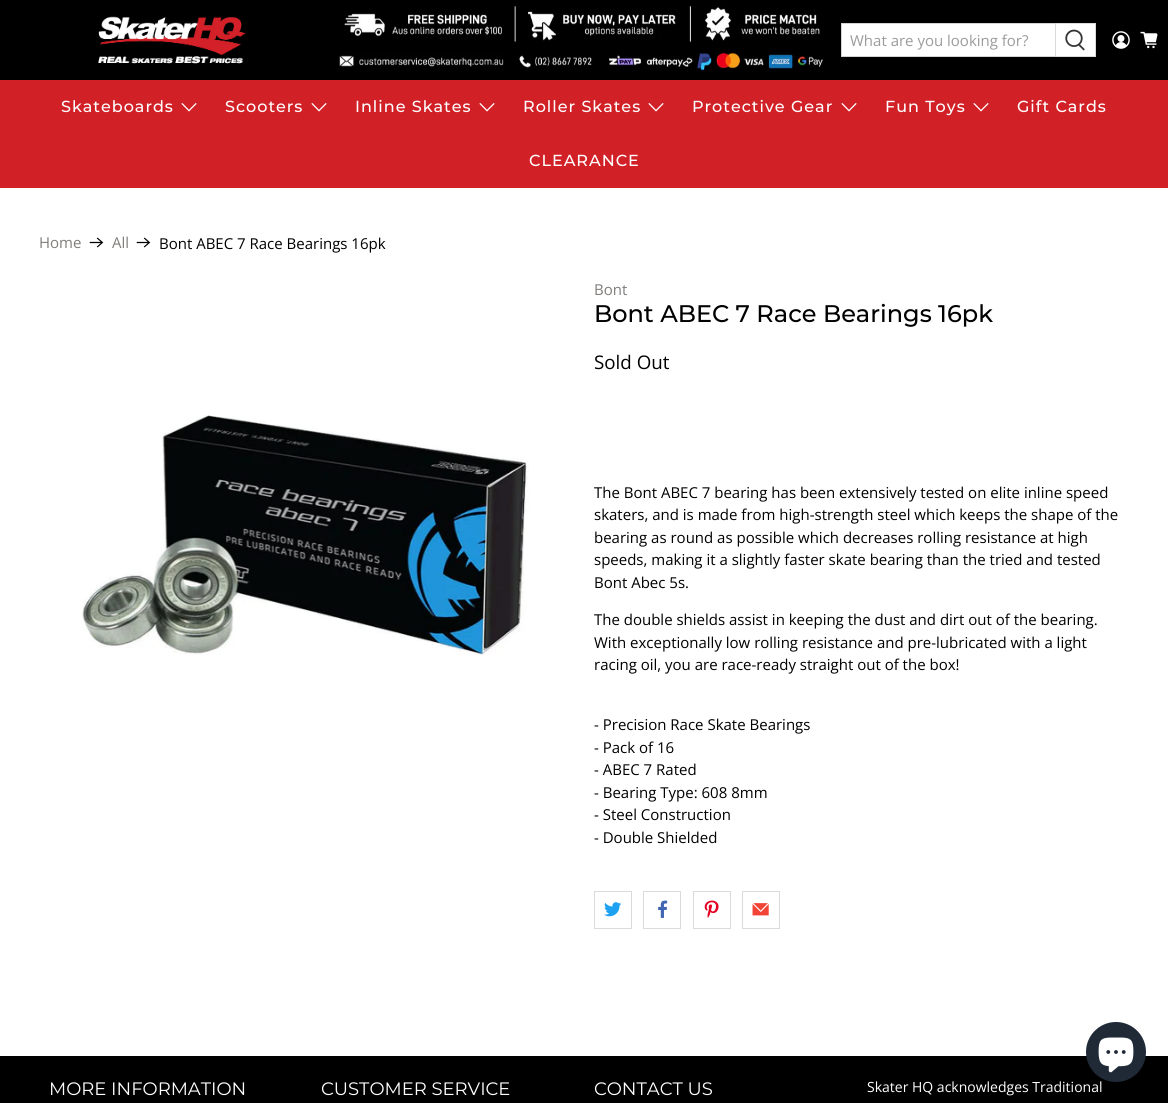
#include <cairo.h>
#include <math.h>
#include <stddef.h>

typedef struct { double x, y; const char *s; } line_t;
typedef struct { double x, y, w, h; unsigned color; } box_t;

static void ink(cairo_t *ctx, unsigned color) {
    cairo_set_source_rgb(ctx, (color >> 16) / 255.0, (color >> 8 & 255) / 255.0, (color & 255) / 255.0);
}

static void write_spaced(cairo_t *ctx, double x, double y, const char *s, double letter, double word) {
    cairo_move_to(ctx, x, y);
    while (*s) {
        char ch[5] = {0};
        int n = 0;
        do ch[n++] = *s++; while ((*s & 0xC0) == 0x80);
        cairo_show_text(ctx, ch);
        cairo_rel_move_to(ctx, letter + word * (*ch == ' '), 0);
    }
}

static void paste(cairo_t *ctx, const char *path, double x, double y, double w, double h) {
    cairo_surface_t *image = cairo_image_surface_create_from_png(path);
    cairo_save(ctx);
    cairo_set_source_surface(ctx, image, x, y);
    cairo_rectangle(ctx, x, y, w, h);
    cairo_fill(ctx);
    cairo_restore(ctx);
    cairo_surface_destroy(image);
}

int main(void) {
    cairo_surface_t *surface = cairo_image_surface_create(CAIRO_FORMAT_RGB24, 1168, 1103);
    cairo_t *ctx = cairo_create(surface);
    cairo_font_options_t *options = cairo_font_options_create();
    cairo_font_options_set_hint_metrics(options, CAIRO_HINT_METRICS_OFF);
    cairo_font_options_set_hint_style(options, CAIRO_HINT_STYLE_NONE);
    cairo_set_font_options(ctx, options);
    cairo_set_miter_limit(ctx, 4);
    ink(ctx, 0xFFFFFF);
    cairo_paint(ctx);
    ink(ctx, 0x000000);
    cairo_rectangle(ctx, 0, 0, 1168, 80);
    cairo_fill(ctx);
    paste(ctx, "media/1.png", 98, 16, 148, 48);
    paste(ctx, "media/2.png", 339, 6, 484, 65);
    {
        static const box_t items[] = {
            {842, 24, 213, 32, 0xFFFFFF},
            {841, 23, 215, 1, 0xD3D3D3},
            {841, 56, 215, 1, 0xD3D3D3},
            {841, 23, 1, 34, 0xD3D3D3},
        };
        for (size_t i = 0; i < sizeof items / sizeof *items; i++) {
            ink(ctx, items[i].color);
            cairo_rectangle(ctx, items[i].x, items[i].y, items[i].w, items[i].h);
            cairo_fill(ctx);
        }
    }
    cairo_select_font_face(ctx, "Open Sans", CAIRO_FONT_SLANT_NORMAL, CAIRO_FONT_WEIGHT_NORMAL);
    cairo_set_font_size(ctx, 15);
    ink(ctx, 0x9B9B9B);
    cairo_move_to(ctx, 850, 46);
    cairo_show_text(ctx, "What are you looking for?");
    ink(ctx, 0xFFFFFF);
    cairo_rectangle(ctx, 1055.5, 23.5, 40, 33);
    cairo_fill_preserve(ctx);
    ink(ctx, 0xDBDBDB);
    cairo_set_line_width(ctx, 1);
    cairo_stroke(ctx);
    paste(ctx, "media/3.png", 1065, 29, 20, 22);
    paste(ctx, "media/4.png", 1112, 31, 18, 18);
    paste(ctx, "media/5.png", 1140, 31, 18, 18);
    ink(ctx, 0xD12127);
    cairo_rectangle(ctx, 0, 80, 1168, 108);
    cairo_fill(ctx);
    cairo_select_font_face(ctx, "Montserrat Medium", CAIRO_FONT_SLANT_NORMAL, CAIRO_FONT_WEIGHT_NORMAL);
    cairo_set_font_size(ctx, 16);
    ink(ctx, 0xFFFFFF);
    write_spaced(ctx, 61, 112, "Skateboards", 1, 0);
    paste(ctx, "media/6.png", 181, 103, 16, 9);
    write_spaced(ctx, 225, 112, "Scooters", 1, 0);
    paste(ctx, "media/6.png", 311, 103, 16, 9);
    write_spaced(ctx, 355, 112, "Inline Skates", 1, 0);
    paste(ctx, "media/6.png", 479, 103, 16, 9);
    write_spaced(ctx, 523, 112, "Roller Skates", 1, 0);
    paste(ctx, "media/6.png", 648, 103, 16, 9);
    write_spaced(ctx, 692, 112, "Protective Gear", 1, 0);
    paste(ctx, "media/6.png", 841, 103, 16, 9);
    write_spaced(ctx, 885, 112, "Fun Toys", 1, 0);
    paste(ctx, "media/6.png", 973, 103, 16, 9);
    write_spaced(ctx, 1017, 112, "Gift Cards", 1, 0);
    write_spaced(ctx, 529, 166, "CLEARANCE", 1, 0);
    cairo_select_font_face(ctx, "Open Sans", CAIRO_FONT_SLANT_NORMAL, CAIRO_FONT_WEIGHT_NORMAL);
    cairo_set_font_size(ctx, 15);
    ink(ctx, 0x807D7A);
    cairo_move_to(ctx, 39, 248);
    cairo_show_text(ctx, "Home");
    paste(ctx, "media/7.png", 89, 237, 15, 11);
    cairo_move_to(ctx, 112, 248);
    cairo_show_text(ctx, "All");
    paste(ctx, "media/7.png", 136, 237, 15, 11);
    ink(ctx, 0x000000);
    cairo_move_to(ctx, 159, 249);
    cairo_show_text(ctx, "Bont ABEC 7 Race Bearings 16pk");
    paste(ctx, "media/8.png", 82, 415, 447, 240);
    ink(ctx, 0x807D7A);
    cairo_move_to(ctx, 594, 295);
    cairo_show_text(ctx, "Bont");
    cairo_select_font_face(ctx, "Montserrat Medium", CAIRO_FONT_SLANT_NORMAL, CAIRO_FONT_WEIGHT_NORMAL);
    cairo_set_font_size(ctx, 24);
    ink(ctx, 0x000000);
    cairo_move_to(ctx, 594, 322);
    cairo_show_text(ctx, "Bont ABEC 7 Race Bearings 16pk");
    cairo_select_font_face(ctx, "Open Sans", CAIRO_FONT_SLANT_NORMAL, CAIRO_FONT_WEIGHT_NORMAL);
    cairo_set_font_size(ctx, 18.75);
    cairo_move_to(ctx, 594, 369);
    cairo_show_text(ctx, "Sold Out");
    cairo_set_font_size(ctx, 15);
    {
        static const line_t items[] = {
            {594, 498, "The Bont ABEC 7 bearing has been extensively tested on elite inline speed"},
            {594, 520, "skaters, and is made from high-strength steel which keeps the shape of the"},
            {594, 543, "bearing as round as possible which decreases rolling resistance at high"},
            {594, 565, "speeds, making it a slightly faster skate bearing than the tried and tested"},
            {594, 588, "Bont Abec 5s."},
            {594, 625, "The double shields assist in keeping the dust and dirt out of the bearing."},
            {594, 648, "With exceptionally low rolling resistance and pre-lubricated with a light"},
            {594, 670, "racing oil, you are race-ready straight out of the box!"},
            {594, 730, "- Precision Race Skate Bearings"},
            {594, 753, "- Pack of 16"},
            {594, 775, "- ABEC 7 Rated"},
            {594, 798, "- Bearing Type: 608 8mm"},
            {594, 820, "- Steel Construction"},
            {594, 843, "- Double Shielded"},
        };
        for (size_t i = 0; i < sizeof items / sizeof *items; i++) {
            cairo_move_to(ctx, items[i].x, items[i].y);
            cairo_show_text(ctx, items[i].s);
        }
    }
    cairo_rectangle(ctx, 594.5, 891.5, 37, 37);
    ink(ctx, 0xDBDBDB);
    cairo_stroke(ctx);
    paste(ctx, "media/9.png", 604, 902, 18, 15);
    cairo_rectangle(ctx, 643.5, 891.5, 37, 37);
    cairo_stroke(ctx);
    paste(ctx, "media/10.png", 658, 900, 10, 18);
    cairo_rectangle(ctx, 693.5, 891.5, 37, 37);
    cairo_stroke(ctx);
    paste(ctx, "media/11.png", 704, 900, 15, 18);
    cairo_rectangle(ctx, 742.5, 891.5, 37, 37);
    cairo_stroke(ctx);
    paste(ctx, "media/12.png", 752, 903, 17, 13);
    ink(ctx, 0x000000);
    cairo_rectangle(ctx, 0, 1056, 1168, 47);
    cairo_fill(ctx);
    cairo_set_font_size(ctx, 14);
    ink(ctx, 0xFFFFFF);
    cairo_move_to(ctx, 867, 1092);
    cairo_show_text(ctx, "Skater HQ acknowledges Traditional");
    ink(ctx, 0x202A36);
    cairo_new_path(ctx);
    cairo_arc(ctx, 1116, 1052, 30, 0, 2 * M_PI);
    cairo_fill(ctx);
    paste(ctx, "media/13.png", 1098, 1037, 36, 36);
    cairo_select_font_face(ctx, "Montserrat", CAIRO_FONT_SLANT_NORMAL, CAIRO_FONT_WEIGHT_NORMAL);
    cairo_set_font_size(ctx, 18);
    ink(ctx, 0xFFFFFF);
    {
        static const line_t items[] = {
            {49, 1095, "MORE INFORMATION"},
            {321, 1095, "CUSTOMER SERVICE"},
            {594, 1095, "CONTACT US"},
        };
        for (size_t i = 0; i < sizeof items / sizeof *items; i++) {
            cairo_move_to(ctx, items[i].x, items[i].y);
            cairo_show_text(ctx, items[i].s);
        }
    }
    cairo_surface_write_to_png(surface, "image.png");
    cairo_font_options_destroy(options);
    cairo_destroy(ctx);
    cairo_surface_destroy(surface);
    return 0;
}
